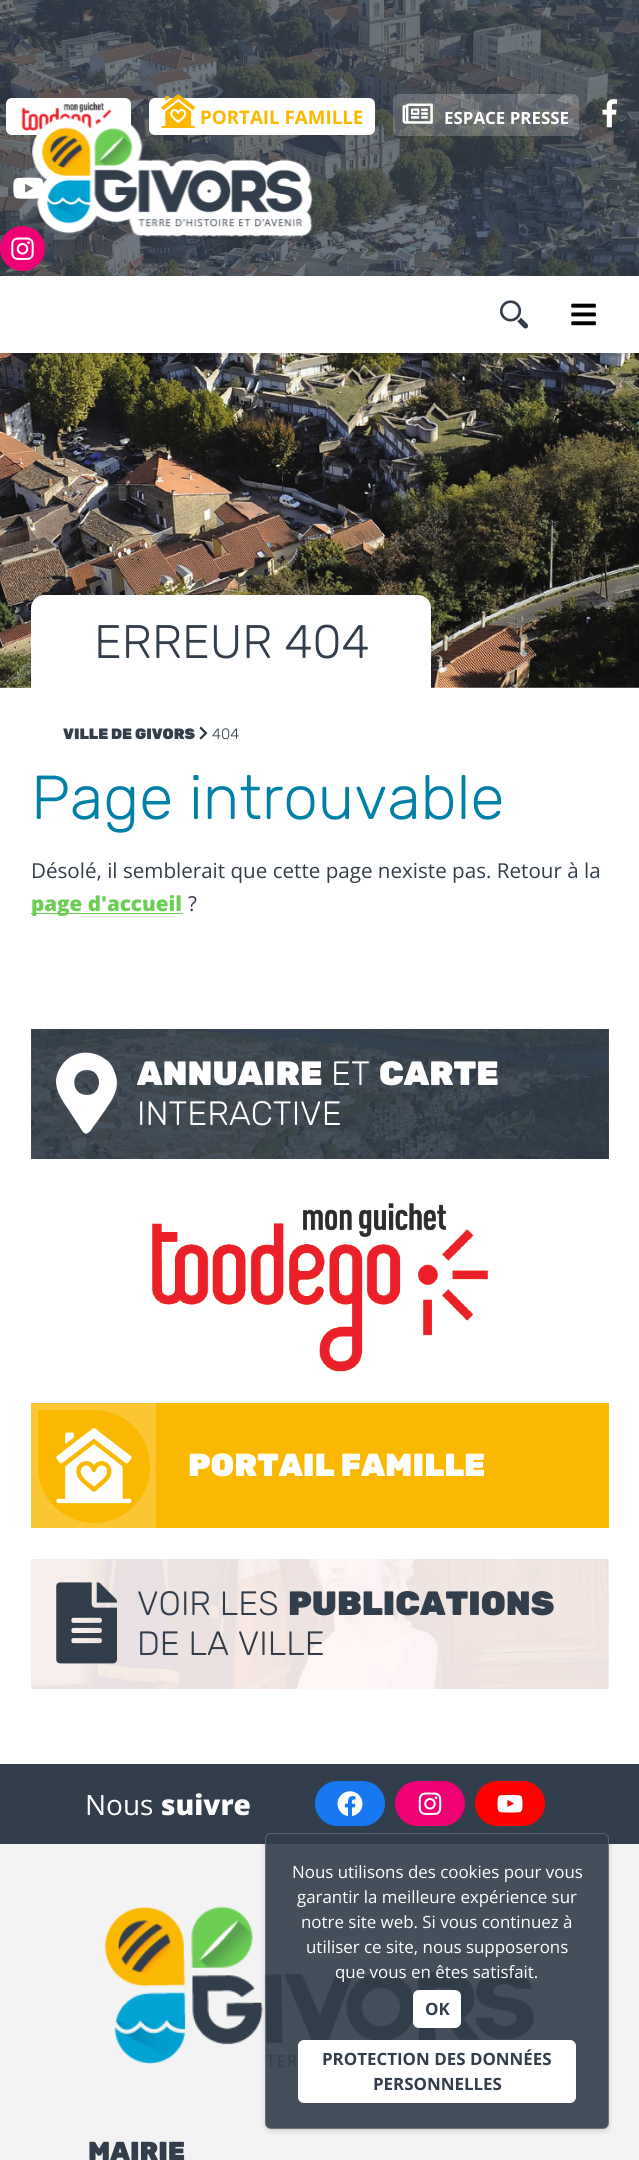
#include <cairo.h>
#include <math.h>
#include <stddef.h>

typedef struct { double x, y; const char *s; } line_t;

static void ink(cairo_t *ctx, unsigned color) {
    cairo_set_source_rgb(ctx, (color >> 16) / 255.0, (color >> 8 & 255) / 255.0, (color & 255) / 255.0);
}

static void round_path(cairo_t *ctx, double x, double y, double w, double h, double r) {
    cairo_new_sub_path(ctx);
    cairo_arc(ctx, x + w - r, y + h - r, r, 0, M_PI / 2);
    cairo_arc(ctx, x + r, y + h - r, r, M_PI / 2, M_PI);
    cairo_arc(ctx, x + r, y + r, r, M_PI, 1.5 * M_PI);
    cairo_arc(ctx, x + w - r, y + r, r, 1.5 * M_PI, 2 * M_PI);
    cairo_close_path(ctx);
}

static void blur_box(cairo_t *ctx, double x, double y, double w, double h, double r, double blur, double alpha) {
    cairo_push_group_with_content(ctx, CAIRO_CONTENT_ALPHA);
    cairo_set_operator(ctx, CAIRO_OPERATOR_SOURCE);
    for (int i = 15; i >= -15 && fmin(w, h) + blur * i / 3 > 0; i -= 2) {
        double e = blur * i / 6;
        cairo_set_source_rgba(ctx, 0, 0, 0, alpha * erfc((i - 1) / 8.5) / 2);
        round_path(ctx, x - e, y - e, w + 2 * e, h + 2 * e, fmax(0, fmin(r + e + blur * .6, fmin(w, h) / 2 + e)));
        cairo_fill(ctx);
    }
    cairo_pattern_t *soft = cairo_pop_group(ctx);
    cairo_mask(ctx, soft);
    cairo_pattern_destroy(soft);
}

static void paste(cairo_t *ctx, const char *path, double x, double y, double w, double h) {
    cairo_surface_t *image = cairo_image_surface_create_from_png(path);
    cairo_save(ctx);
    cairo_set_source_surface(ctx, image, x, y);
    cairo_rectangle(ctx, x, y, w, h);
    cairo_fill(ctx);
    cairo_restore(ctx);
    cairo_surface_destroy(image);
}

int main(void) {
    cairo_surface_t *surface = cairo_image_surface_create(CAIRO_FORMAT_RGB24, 639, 2160);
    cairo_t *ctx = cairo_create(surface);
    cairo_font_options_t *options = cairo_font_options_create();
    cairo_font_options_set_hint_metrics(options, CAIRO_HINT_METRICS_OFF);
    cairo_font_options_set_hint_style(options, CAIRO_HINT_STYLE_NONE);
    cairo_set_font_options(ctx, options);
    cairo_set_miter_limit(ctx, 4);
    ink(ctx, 0xFFFFFF);
    cairo_paint(ctx);
    ink(ctx, 0x47515D);
    cairo_rectangle(ctx, 31, 1029, 578, 130);
    cairo_fill(ctx);
    paste(ctx, "media/11.png", 0, 0, 639, 688);
    cairo_save(ctx);
    cairo_rectangle(ctx, 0, 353, 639, 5);
    cairo_clip(ctx);
    ink(ctx, 0x000000);
    blur_box(ctx, 0, 3, 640, 352, 0, 3, 0.15);
    cairo_restore(ctx);
    cairo_set_source_rgba(ctx, 0.196, 0.243, 0.294, 0.7);
    cairo_rectangle(ctx, 0, 0, 639, 276);
    cairo_fill(ctx);
    ink(ctx, 0xFFFFFF);
    round_path(ctx, 6, 98, 125, 37, 6);
    cairo_fill(ctx);
    paste(ctx, "media/2.png", 21, 102, 91, 29);
    paste(ctx, "media/4.png", 13, 177, 31, 22);
    paste(ctx, "media/5.png", 95, 166, 80, 51);
    round_path(ctx, 149, 98, 226, 37, 6);
    cairo_fill(ctx);
    paste(ctx, "media/6.png", 161, 94, 35, 34);
    cairo_select_font_face(ctx, "Open Sans", CAIRO_FONT_SLANT_NORMAL, CAIRO_FONT_WEIGHT_BOLD);
    cairo_set_font_size(ctx, 18.75);
    ink(ctx, 0xFBB800);
    cairo_move_to(ctx, 200, 124);
    cairo_show_text(ctx, "PORTAIL FAMILLE");
    ink(ctx, 0xF00075);
    cairo_new_path(ctx);
    cairo_arc(ctx, 22.5, 248.5, 22.5, 0, 2 * M_PI);
    cairo_fill(ctx);
    paste(ctx, "media/1.png", 32, 117, 281, 120);
    paste(ctx, "media/3.png", 602, 99, 15, 29);
    cairo_set_source_rgba(ctx, 1, 1, 1, 0.2);
    round_path(ctx, 393, 94, 186, 42, 6);
    cairo_fill(ctx);
    paste(ctx, "media/7.png", 402, 103, 31, 21);
    cairo_set_font_size(ctx, 16.9);
    ink(ctx, 0xFFFFFF);
    cairo_move_to(ctx, 444, 124);
    cairo_show_text(ctx, "ESPACE PRESSE");
    paste(ctx, "media/8.png", 11, 237, 23, 23);
    cairo_rectangle(ctx, 0, 276, 639, 77);
    cairo_fill(ctx);
    paste(ctx, "media/9.png", 500, 300, 29, 29);
    paste(ctx, "media/10.png", 571, 303, 25, 23);
    cairo_new_path(ctx);
    cairo_move_to(ctx, 44, 595);
    cairo_line_to(ctx, 418, 595);
    cairo_curve_to(ctx, 425, 595, 431, 601, 431, 608);
    cairo_line_to(ctx, 431, 688);
    cairo_line_to(ctx, 31, 688);
    cairo_line_to(ctx, 31, 608);
    cairo_curve_to(ctx, 31, 601, 37, 595, 44, 595);
    cairo_close_path(ctx);
    cairo_fill(ctx);
    cairo_select_font_face(ctx, "Rubik Light", CAIRO_FONT_SLANT_NORMAL, CAIRO_FONT_WEIGHT_NORMAL);
    cairo_set_font_size(ctx, 47);
    ink(ctx, 0x323E4B);
    cairo_move_to(ctx, 94, 658);
    cairo_show_text(ctx, "ERREUR 404");
    cairo_select_font_face(ctx, "Rubik Black", CAIRO_FONT_SLANT_NORMAL, CAIRO_FONT_WEIGHT_NORMAL);
    cairo_set_font_size(ctx, 15);
    cairo_move_to(ctx, 63, 739);
    cairo_show_text(ctx, "VILLE DE GIVORS");
    paste(ctx, "media/12.png", 199, 726, 9, 14);
    cairo_select_font_face(ctx, "Rubik Light", CAIRO_FONT_SLANT_NORMAL, CAIRO_FONT_WEIGHT_NORMAL);
    cairo_move_to(ctx, 212, 739);
    cairo_show_text(ctx, "404");
    cairo_set_font_size(ctx, 62);
    ink(ctx, 0x0080A6);
    cairo_move_to(ctx, 31, 819);
    cairo_show_text(ctx, "Page introuvable");
    cairo_select_font_face(ctx, "Open Sans", CAIRO_FONT_SLANT_NORMAL, CAIRO_FONT_WEIGHT_NORMAL);
    cairo_set_font_size(ctx, 20.6);
    ink(ctx, 0x323E4B);
    cairo_move_to(ctx, 31, 878);
    cairo_show_text(ctx, "Désolé, il semblerait que cette page nexiste pas. Retour à la");
    ink(ctx, 0x6CCE53);
    cairo_rectangle(ctx, 31, 913, 152, 1);
    cairo_fill(ctx);
    cairo_select_font_face(ctx, "Open Sans ExtraBold", CAIRO_FONT_SLANT_NORMAL, CAIRO_FONT_WEIGHT_NORMAL);
    cairo_move_to(ctx, 31, 911);
    cairo_show_text(ctx, "page d'accueil");
    cairo_select_font_face(ctx, "Open Sans", CAIRO_FONT_SLANT_NORMAL, CAIRO_FONT_WEIGHT_NORMAL);
    ink(ctx, 0x323E4B);
    cairo_move_to(ctx, 188, 911);
    cairo_show_text(ctx, "?");
    paste(ctx, "media/13.png", 31, 1029, 578, 130);
    ink(ctx, 0xFFFFFF);
    cairo_new_path(ctx);
    cairo_move_to(ctx, 83, 1132);
    cairo_line_to(ctx, 68, 1109);
    cairo_curve_to(ctx, 59, 1096, 51, 1083, 60, 1068);
    cairo_curve_to(ctx, 64, 1061, 70, 1056, 77, 1054);
    cairo_curve_to(ctx, 86, 1051, 97, 1053, 105, 1059);
    cairo_curve_to(ctx, 110, 1062, 113, 1067, 115, 1073);
    cairo_curve_to(ctx, 122, 1091, 108, 1105, 99, 1119);
    cairo_line_to(ctx, 93, 1127);
    cairo_curve_to(ctx, 92, 1129, 87, 1137, 83, 1132);
    cairo_close_path(ctx);
    cairo_move_to(ctx, 87, 1095);
    cairo_curve_to(ctx, 103, 1095, 103, 1070, 87, 1070);
    cairo_curve_to(ctx, 70, 1070, 70, 1095, 87, 1095);
    cairo_close_path(ctx);
    cairo_fill(ctx);
    cairo_select_font_face(ctx, "Rubik Black", CAIRO_FONT_SLANT_NORMAL, CAIRO_FONT_WEIGHT_NORMAL);
    cairo_set_font_size(ctx, 33.75);
    cairo_move_to(ctx, 137, 1085);
    cairo_show_text(ctx, "ANNUAIRE");
    cairo_select_font_face(ctx, "Rubik Light", CAIRO_FONT_SLANT_NORMAL, CAIRO_FONT_WEIGHT_NORMAL);
    cairo_move_to(ctx, 331, 1085);
    cairo_show_text(ctx, "ET");
    cairo_select_font_face(ctx, "Rubik Black", CAIRO_FONT_SLANT_NORMAL, CAIRO_FONT_WEIGHT_NORMAL);
    cairo_move_to(ctx, 379, 1085);
    cairo_show_text(ctx, "CARTE");
    cairo_select_font_face(ctx, "Rubik Light", CAIRO_FONT_SLANT_NORMAL, CAIRO_FONT_WEIGHT_NORMAL);
    cairo_move_to(ctx, 137, 1125);
    cairo_show_text(ctx, "INTERACTIVE");
    paste(ctx, "media/14.png", 152, 1203, 336, 169);
    ink(ctx, 0xFBB800);
    cairo_rectangle(ctx, 156, 1403, 453, 125);
    cairo_fill(ctx);
    ink(ctx, 0xFCC633);
    cairo_rectangle(ctx, 31, 1403, 125, 125);
    cairo_fill(ctx);
    ink(ctx, 0xFBB800);
    cairo_new_path(ctx);
    cairo_move_to(ctx, 38, 1410);
    cairo_line_to(ctx, 94, 1410);
    cairo_curve_to(ctx, 125, 1410, 150, 1435, 150, 1466);
    cairo_line_to(ctx, 150, 1467);
    cairo_curve_to(ctx, 150, 1498, 125, 1523, 94, 1523);
    cairo_curve_to(ctx, 63, 1523, 38, 1498, 38, 1467);
    cairo_close_path(ctx);
    cairo_fill(ctx);
    paste(ctx, "media/15.png", 56, 1428, 76, 76);
    cairo_select_font_face(ctx, "Rubik Black", CAIRO_FONT_SLANT_NORMAL, CAIRO_FONT_WEIGHT_NORMAL);
    cairo_set_font_size(ctx, 31.9);
    ink(ctx, 0xFFFFFF);
    cairo_move_to(ctx, 188, 1476);
    cairo_show_text(ctx, "PORTAIL FAMILLE");
    paste(ctx, "media/16.png", 31, 1559, 578, 130);
    paste(ctx, "media/17.png", 56, 1582, 61, 82);
    cairo_select_font_face(ctx, "Rubik Light", CAIRO_FONT_SLANT_NORMAL, CAIRO_FONT_WEIGHT_NORMAL);
    cairo_set_font_size(ctx, 33.75);
    ink(ctx, 0x323E4B);
    cairo_move_to(ctx, 137, 1615);
    cairo_show_text(ctx, "VOIR LES");
    cairo_select_font_face(ctx, "Rubik Black", CAIRO_FONT_SLANT_NORMAL, CAIRO_FONT_WEIGHT_NORMAL);
    cairo_move_to(ctx, 288, 1615);
    cairo_show_text(ctx, "PUBLICATIONS");
    cairo_select_font_face(ctx, "Rubik Light", CAIRO_FONT_SLANT_NORMAL, CAIRO_FONT_WEIGHT_NORMAL);
    cairo_move_to(ctx, 137, 1655);
    cairo_show_text(ctx, "DE LA VILLE");
    cairo_rectangle(ctx, 0, 1764, 639, 80);
    cairo_fill(ctx);
    cairo_select_font_face(ctx, "Open Sans", CAIRO_FONT_SLANT_NORMAL, CAIRO_FONT_WEIGHT_NORMAL);
    cairo_set_font_size(ctx, 28);
    ink(ctx, 0xFFFFFF);
    cairo_move_to(ctx, 85, 1815);
    cairo_show_text(ctx, "Nous");
    cairo_select_font_face(ctx, "Open Sans ExtraBold", CAIRO_FONT_SLANT_NORMAL, CAIRO_FONT_WEIGHT_NORMAL);
    cairo_move_to(ctx, 161, 1815);
    cairo_show_text(ctx, "suivre");
    ink(ctx, 0x1778F2);
    round_path(ctx, 315, 1781, 70, 45, 22.5);
    cairo_fill(ctx);
    paste(ctx, "media/18.png", 337, 1791, 26, 26);
    ink(ctx, 0xF00075);
    round_path(ctx, 395, 1781, 70, 45, 22.5);
    cairo_fill(ctx);
    paste(ctx, "media/19.png", 418, 1792, 24, 23);
    ink(ctx, 0xFF0000);
    round_path(ctx, 475, 1781, 70, 45, 22.5);
    cairo_fill(ctx);
    paste(ctx, "media/20.png", 497, 1794, 26, 19);
    ink(ctx, 0xF3F3F3);
    cairo_rectangle(ctx, 0, 1844, 639, 316);
    cairo_fill(ctx);
    paste(ctx, "media/21.png", 105, 1906, 429, 162);
    cairo_select_font_face(ctx, "Rubik Black", CAIRO_FONT_SLANT_NORMAL, CAIRO_FONT_WEIGHT_NORMAL);
    cairo_set_font_size(ctx, 26);
    ink(ctx, 0x323E4B);
    cairo_move_to(ctx, 88, 2160);
    cairo_show_text(ctx, "MAIRIE");
    cairo_save(ctx);
    cairo_set_fill_rule(ctx, CAIRO_FILL_RULE_EVEN_ODD);
    cairo_new_path(ctx);
    cairo_move_to(ctx, 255, 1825);
    cairo_line_to(ctx, 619, 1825);
    cairo_line_to(ctx, 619, 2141);
    cairo_line_to(ctx, 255, 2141);
    cairo_close_path(ctx);
    cairo_move_to(ctx, 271, 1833);
    cairo_line_to(ctx, 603, 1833);
    cairo_curve_to(ctx, 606.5, 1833, 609, 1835.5, 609, 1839);
    cairo_line_to(ctx, 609, 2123);
    cairo_curve_to(ctx, 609, 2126.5, 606.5, 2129, 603, 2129);
    cairo_line_to(ctx, 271, 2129);
    cairo_curve_to(ctx, 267.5, 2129, 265, 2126.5, 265, 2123);
    cairo_line_to(ctx, 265, 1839);
    cairo_curve_to(ctx, 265, 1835.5, 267.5, 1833, 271, 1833);
    cairo_close_path(ctx);
    cairo_clip(ctx);
    ink(ctx, 0x000000);
    blur_box(ctx, 265, 1835, 344, 296, 6, 3, 0.15);
    cairo_restore(ctx);
    cairo_set_source_rgba(ctx, 0.196, 0.243, 0.294, 0.9);
    round_path(ctx, 265, 1833, 344, 296, 6);
    cairo_fill(ctx);
    round_path(ctx, 265.5, 1833.5, 343, 295, 5.5);
    cairo_set_source_rgba(ctx, 1, 1, 1, 0.2);
    cairo_set_line_width(ctx, 1);
    cairo_stroke(ctx);
    cairo_select_font_face(ctx, "Open Sans", CAIRO_FONT_SLANT_NORMAL, CAIRO_FONT_WEIGHT_NORMAL);
    cairo_set_font_size(ctx, 16.9);
    ink(ctx, 0xFFFFFF);
    {
        static const line_t items[] = {
            {292, 1878, "Nous utilisons des cookies pour vous"},
            {297, 1903, "garantir la meilleure expérience sur"},
            {301, 1928, "notre site web. Si vous continuez à"},
            {306, 1953, "utiliser ce site, nous supposerons"},
            {335, 1978, "que vous en êtes satisfait."},
        };
        for (size_t i = 0; i < sizeof items / sizeof *items; i++) {
            cairo_move_to(ctx, items[i].x, items[i].y);
            cairo_show_text(ctx, items[i].s);
        }
    }
    round_path(ctx, 413, 1990, 48, 38, 6);
    cairo_fill(ctx);
    cairo_select_font_face(ctx, "Open Sans", CAIRO_FONT_SLANT_NORMAL, CAIRO_FONT_WEIGHT_BOLD);
    ink(ctx, 0x323E4B);
    cairo_move_to(ctx, 425, 2015);
    cairo_show_text(ctx, "OK");
    ink(ctx, 0xFFFFFF);
    round_path(ctx, 298, 2040, 278, 63, 6);
    cairo_fill(ctx);
    ink(ctx, 0x323E4B);
    cairo_move_to(ctx, 322, 2065);
    cairo_show_text(ctx, "PROTECTION DES DONNÉES");
    cairo_move_to(ctx, 373, 2090);
    cairo_show_text(ctx, "PERSONNELLES");
    cairo_surface_write_to_png(surface, "image.png");
    cairo_font_options_destroy(options);
    cairo_destroy(ctx);
    cairo_surface_destroy(surface);
    return 0;
}
